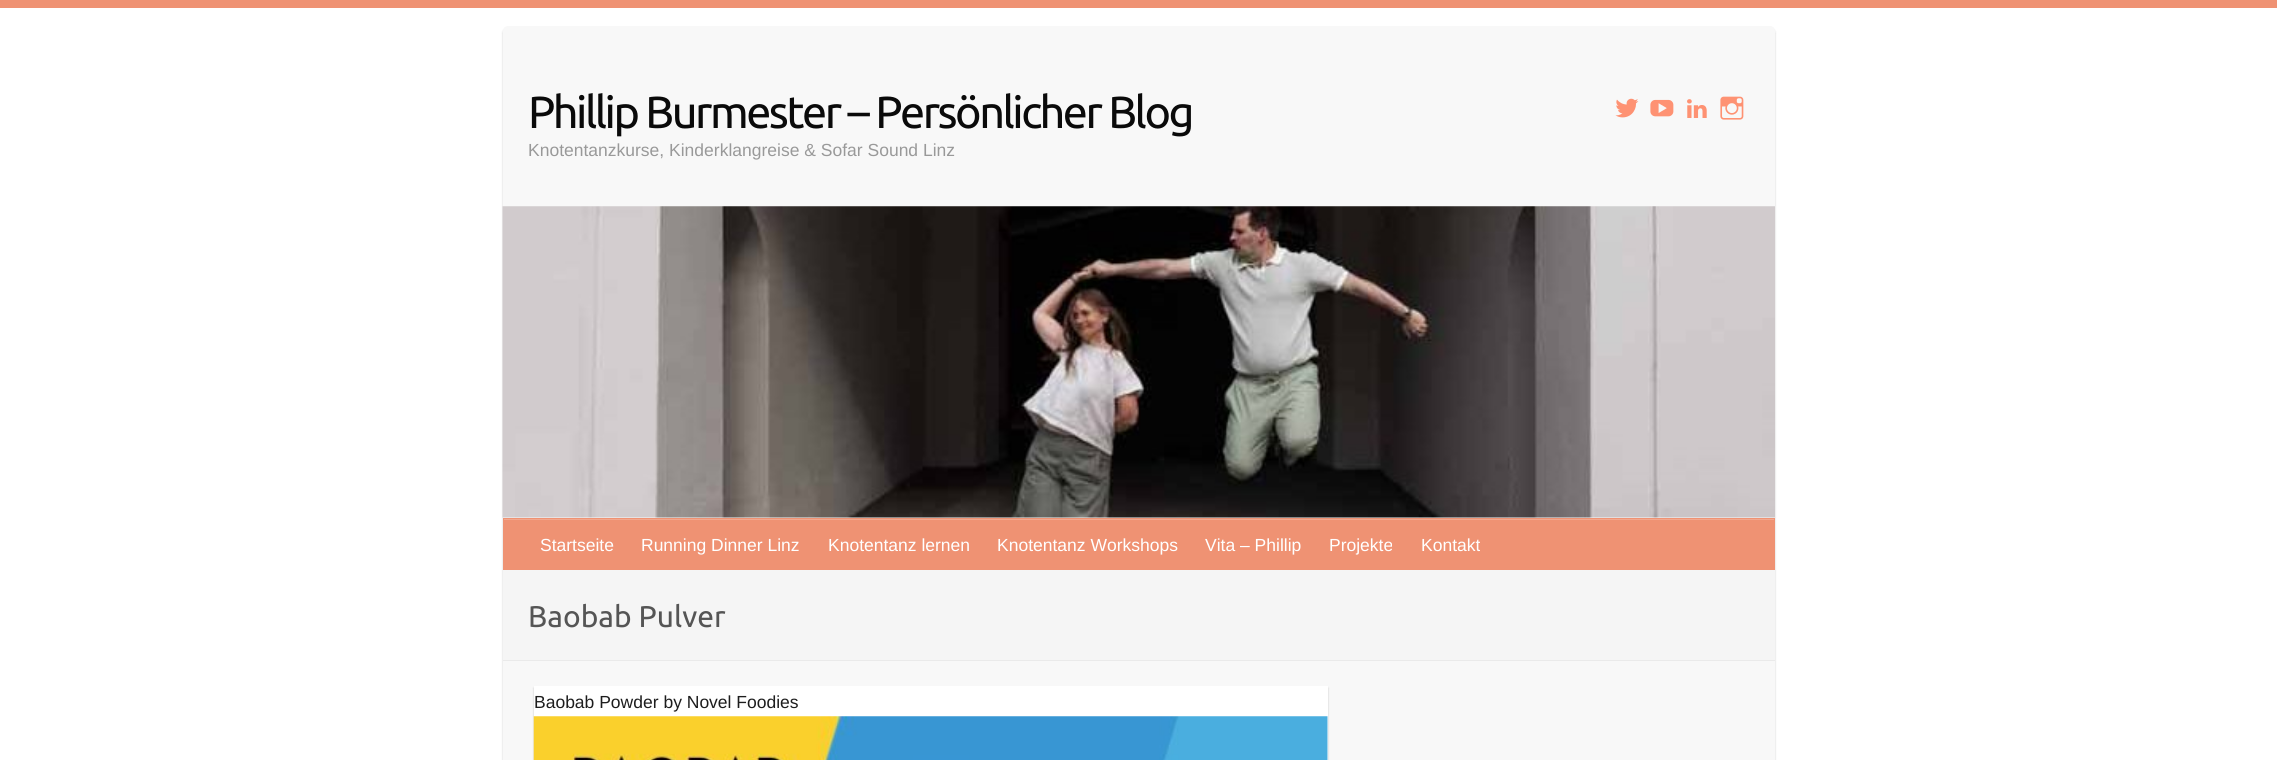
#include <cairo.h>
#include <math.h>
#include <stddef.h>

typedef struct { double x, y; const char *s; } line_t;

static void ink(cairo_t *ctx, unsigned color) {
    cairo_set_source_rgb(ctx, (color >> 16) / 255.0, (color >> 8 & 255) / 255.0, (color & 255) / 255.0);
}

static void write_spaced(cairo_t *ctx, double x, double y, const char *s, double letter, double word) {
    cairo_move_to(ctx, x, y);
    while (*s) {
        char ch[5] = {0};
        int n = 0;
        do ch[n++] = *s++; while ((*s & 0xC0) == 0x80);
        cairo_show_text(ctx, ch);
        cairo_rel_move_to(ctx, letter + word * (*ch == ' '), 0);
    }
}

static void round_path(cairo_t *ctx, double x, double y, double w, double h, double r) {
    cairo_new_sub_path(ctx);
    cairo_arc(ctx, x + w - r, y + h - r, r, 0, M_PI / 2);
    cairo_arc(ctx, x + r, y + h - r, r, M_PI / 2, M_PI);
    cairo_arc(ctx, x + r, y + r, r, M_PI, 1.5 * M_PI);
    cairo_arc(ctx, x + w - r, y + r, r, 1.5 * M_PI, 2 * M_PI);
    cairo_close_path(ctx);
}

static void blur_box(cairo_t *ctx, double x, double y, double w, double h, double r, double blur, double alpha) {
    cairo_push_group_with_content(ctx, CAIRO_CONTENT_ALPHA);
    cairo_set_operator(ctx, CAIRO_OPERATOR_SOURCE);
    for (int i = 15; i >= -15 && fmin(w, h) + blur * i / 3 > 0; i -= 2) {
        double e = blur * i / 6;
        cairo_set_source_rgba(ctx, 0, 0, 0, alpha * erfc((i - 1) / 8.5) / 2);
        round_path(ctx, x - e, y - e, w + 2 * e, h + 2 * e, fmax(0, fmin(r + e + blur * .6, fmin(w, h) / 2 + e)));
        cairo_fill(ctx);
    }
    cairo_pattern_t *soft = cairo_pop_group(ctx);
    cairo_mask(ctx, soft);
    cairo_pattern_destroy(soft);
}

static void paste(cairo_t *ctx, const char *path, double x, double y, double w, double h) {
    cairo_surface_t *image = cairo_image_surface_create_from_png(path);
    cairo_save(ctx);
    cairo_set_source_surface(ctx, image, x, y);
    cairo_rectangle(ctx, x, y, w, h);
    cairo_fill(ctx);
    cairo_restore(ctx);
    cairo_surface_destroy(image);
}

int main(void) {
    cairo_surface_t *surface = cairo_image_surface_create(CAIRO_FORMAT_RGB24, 2277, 760);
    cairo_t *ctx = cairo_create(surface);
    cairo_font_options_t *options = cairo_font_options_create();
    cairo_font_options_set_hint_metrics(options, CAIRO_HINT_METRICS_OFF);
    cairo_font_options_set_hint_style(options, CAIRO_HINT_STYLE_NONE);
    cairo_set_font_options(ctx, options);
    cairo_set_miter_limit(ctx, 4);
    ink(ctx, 0xFFFFFF);
    cairo_paint(ctx);
    ink(ctx, 0xEF9273);
    cairo_rectangle(ctx, 0, 0, 2277, 8);
    cairo_fill(ctx);
    ink(ctx, 0x000000);
    blur_box(ctx, 503, 28, 1272, 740, 5, 1, 0.2);
    ink(ctx, 0xF8F8F8);
    round_path(ctx, 503, 26, 1272, 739, 5);
    cairo_fill(ctx);
    cairo_select_font_face(ctx, "Ubuntu", CAIRO_FONT_SLANT_NORMAL, CAIRO_FONT_WEIGHT_NORMAL);
    cairo_set_font_size(ctx, 45);
    ink(ctx, 0x0A0A0A);
    write_spaced(ctx, 528, 128, "Phillip Burmester – Persönlicher Blog", -2.5, 0);
    cairo_select_font_face(ctx, "Liberation Sans", CAIRO_FONT_SLANT_NORMAL, CAIRO_FONT_WEIGHT_NORMAL);
    cairo_set_font_size(ctx, 17.5);
    ink(ctx, 0x999999);
    cairo_move_to(ctx, 528, 156);
    cairo_show_text(ctx, "Knotentanzkurse, Kinderklangreise & Sofar Sound Linz");
    paste(ctx, "media/1.png", 1615, 98, 24, 20);
    paste(ctx, "media/2.png", 1650, 99, 24, 18);
    paste(ctx, "media/3.png", 1687, 99, 20, 19);
    paste(ctx, "media/4.png", 1720, 96, 24, 24);
    paste(ctx, "media/5.png", 502, 206, 1273, 312);
    ink(ctx, 0xEF9273);
    cairo_rectangle(ctx, 503, 518, 1272, 52);
    cairo_fill(ctx);
    ink(ctx, 0xF2A88F);
    cairo_rectangle(ctx, 504, 519, 1270, 1);
    cairo_fill(ctx);
    ink(ctx, 0xFFFFFF);
    {
        static const line_t items[] = {
            {540, 551, "Startseite"},
            {641, 551, "Running Dinner Linz"},
            {828, 551, "Knotentanz lernen"},
            {997, 551, "Knotentanz Workshops"},
            {1205, 551, "Vita – Phillip"},
            {1329, 551, "Projekte"},
            {1421, 551, "Kontakt"},
        };
        for (size_t i = 0; i < sizeof items / sizeof *items; i++) {
            cairo_move_to(ctx, items[i].x, items[i].y);
            cairo_show_text(ctx, items[i].s);
        }
    }
    ink(ctx, 0xF5F5F5);
    cairo_rectangle(ctx, 503, 570, 1272, 90);
    cairo_fill(ctx);
    ink(ctx, 0xEAEAEA);
    cairo_rectangle(ctx, 503, 660, 1272, 1);
    cairo_fill(ctx);
    cairo_select_font_face(ctx, "Ubuntu", CAIRO_FONT_SLANT_NORMAL, CAIRO_FONT_WEIGHT_NORMAL);
    cairo_set_font_size(ctx, 30);
    ink(ctx, 0x555555);
    cairo_move_to(ctx, 528, 627);
    cairo_show_text(ctx, "Baobab Pulver");
    ink(ctx, 0x000000);
    blur_box(ctx, 534, 688, 794, 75, 0, 1, 0.2);
    ink(ctx, 0xFFFFFF);
    cairo_rectangle(ctx, 534, 686, 794, 74);
    cairo_fill(ctx);
    cairo_select_font_face(ctx, "Liberation Sans", CAIRO_FONT_SLANT_NORMAL, CAIRO_FONT_WEIGHT_NORMAL);
    cairo_set_font_size(ctx, 17.5);
    ink(ctx, 0x1D1D1D);
    cairo_move_to(ctx, 534, 708);
    cairo_show_text(ctx, "Baobab Powder by Novel Foodies");
    paste(ctx, "media/6.png", 533, 716, 795, 44);
    cairo_surface_write_to_png(surface, "image.png");
    cairo_font_options_destroy(options);
    cairo_destroy(ctx);
    cairo_surface_destroy(surface);
    return 0;
}
